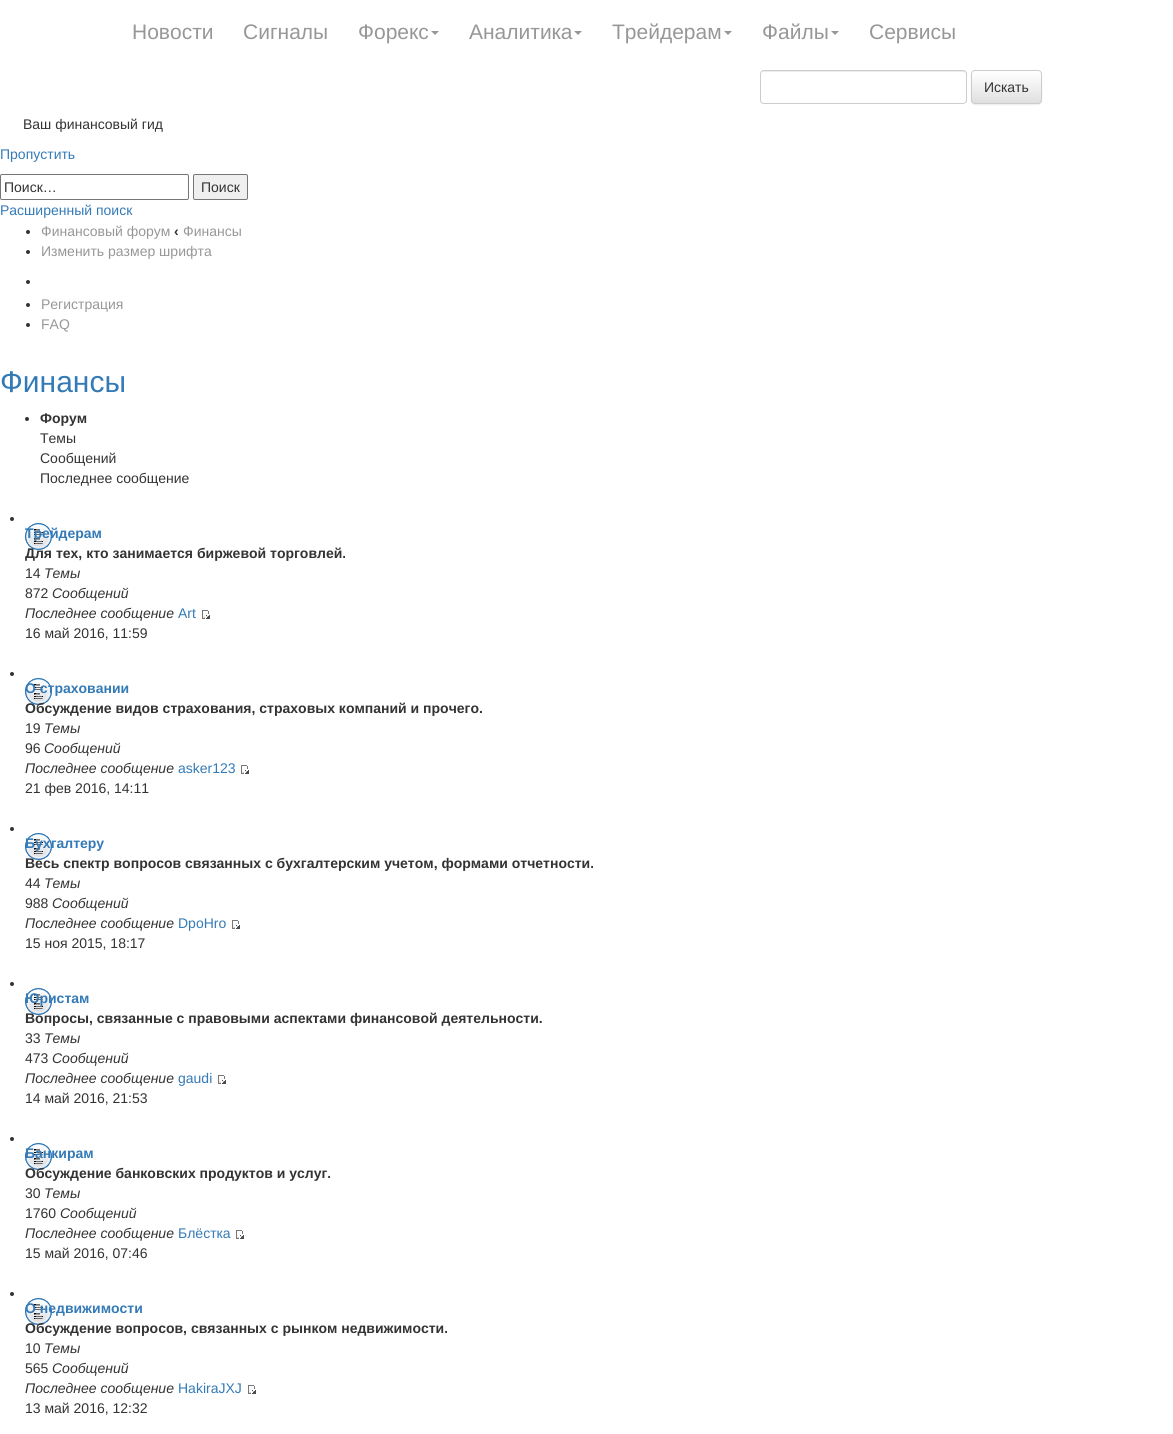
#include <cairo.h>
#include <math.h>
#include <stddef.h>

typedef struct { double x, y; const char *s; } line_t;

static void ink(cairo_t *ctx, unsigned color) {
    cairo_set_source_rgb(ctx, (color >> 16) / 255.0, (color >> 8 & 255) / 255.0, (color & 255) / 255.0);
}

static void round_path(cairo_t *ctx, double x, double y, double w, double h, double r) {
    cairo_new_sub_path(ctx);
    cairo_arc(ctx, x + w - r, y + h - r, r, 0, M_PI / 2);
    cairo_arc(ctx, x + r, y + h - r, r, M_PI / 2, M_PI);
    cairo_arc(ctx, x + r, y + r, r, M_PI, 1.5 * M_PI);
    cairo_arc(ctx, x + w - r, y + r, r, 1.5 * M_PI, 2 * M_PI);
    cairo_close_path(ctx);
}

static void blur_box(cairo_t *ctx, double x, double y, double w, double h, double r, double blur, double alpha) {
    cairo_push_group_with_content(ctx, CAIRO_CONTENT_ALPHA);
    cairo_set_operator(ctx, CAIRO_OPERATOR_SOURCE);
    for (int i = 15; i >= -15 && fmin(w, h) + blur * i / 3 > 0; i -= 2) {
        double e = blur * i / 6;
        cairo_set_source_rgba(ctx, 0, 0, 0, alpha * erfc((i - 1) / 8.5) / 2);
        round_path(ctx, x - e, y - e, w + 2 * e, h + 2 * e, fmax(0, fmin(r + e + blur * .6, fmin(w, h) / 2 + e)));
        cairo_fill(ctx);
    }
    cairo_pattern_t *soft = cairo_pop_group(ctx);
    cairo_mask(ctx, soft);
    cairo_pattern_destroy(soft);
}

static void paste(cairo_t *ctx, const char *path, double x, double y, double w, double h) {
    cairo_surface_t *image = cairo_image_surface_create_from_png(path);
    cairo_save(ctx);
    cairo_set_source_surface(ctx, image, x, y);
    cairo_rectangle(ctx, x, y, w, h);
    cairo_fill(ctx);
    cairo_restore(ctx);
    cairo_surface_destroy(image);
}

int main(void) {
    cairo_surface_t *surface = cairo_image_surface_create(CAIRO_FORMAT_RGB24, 1173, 1434);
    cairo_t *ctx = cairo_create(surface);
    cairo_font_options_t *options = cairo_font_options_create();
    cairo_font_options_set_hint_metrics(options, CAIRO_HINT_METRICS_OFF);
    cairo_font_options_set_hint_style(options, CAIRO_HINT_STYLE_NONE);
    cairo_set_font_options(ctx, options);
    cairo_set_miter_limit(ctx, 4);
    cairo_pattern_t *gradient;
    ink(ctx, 0xFFFFFF);
    cairo_paint(ctx);
    cairo_select_font_face(ctx, "Liberation Sans", CAIRO_FONT_SLANT_NORMAL, CAIRO_FONT_WEIGHT_NORMAL);
    cairo_set_font_size(ctx, 21);
    ink(ctx, 0x979797);
    {
        static const line_t items[] = {
            {132, 39, "Новости"},
            {243, 39, "Сигналы"},
            {358, 39, "Форекс"},
        };
        for (size_t i = 0; i < sizeof items / sizeof *items; i++) {
            cairo_move_to(ctx, items[i].x, items[i].y);
            cairo_show_text(ctx, items[i].s);
        }
    }
    cairo_new_path(ctx);
    cairo_move_to(ctx, 431, 31);
    cairo_line_to(ctx, 439, 31);
    cairo_line_to(ctx, 435, 35);
    cairo_close_path(ctx);
    cairo_fill(ctx);
    cairo_move_to(ctx, 469, 39);
    cairo_show_text(ctx, "Аналитика");
    cairo_new_path(ctx);
    cairo_move_to(ctx, 574, 31);
    cairo_line_to(ctx, 582, 31);
    cairo_line_to(ctx, 578, 35);
    cairo_close_path(ctx);
    cairo_fill(ctx);
    cairo_move_to(ctx, 612, 39);
    cairo_show_text(ctx, "Трейдерам");
    cairo_new_path(ctx);
    cairo_move_to(ctx, 724, 31);
    cairo_line_to(ctx, 732, 31);
    cairo_line_to(ctx, 728, 35);
    cairo_close_path(ctx);
    cairo_fill(ctx);
    cairo_move_to(ctx, 762, 39);
    cairo_show_text(ctx, "Файлы");
    cairo_new_path(ctx);
    cairo_move_to(ctx, 831, 31);
    cairo_line_to(ctx, 839, 31);
    cairo_line_to(ctx, 835, 35);
    cairo_close_path(ctx);
    cairo_fill(ctx);
    cairo_move_to(ctx, 869, 39);
    cairo_show_text(ctx, "Сервисы");
    ink(ctx, 0xECECEC);
    cairo_new_path(ctx);
    cairo_move_to(ctx, 764, 72);
    cairo_line_to(ctx, 963, 72);
    cairo_curve_to(ctx, 965, 72, 966, 73, 966, 75);
    cairo_curve_to(ctx, 966, 73, 965, 71, 963, 71);
    cairo_line_to(ctx, 764, 71);
    cairo_curve_to(ctx, 762, 71, 761, 73, 761, 75);
    cairo_curve_to(ctx, 761, 73, 762, 72, 764, 72);
    cairo_close_path(ctx);
    cairo_fill(ctx);
    round_path(ctx, 760.5, 70.5, 206, 33, 3.5);
    ink(ctx, 0xCCCCCC);
    cairo_set_line_width(ctx, 1);
    cairo_stroke(ctx);
    ink(ctx, 0x000000);
    blur_box(ctx, 971, 71, 71, 34, 4, 0.5, 0.07);
    cairo_save(ctx);
    round_path(ctx, 971, 70, 71, 34, 4);
    cairo_clip(ctx);
    gradient = cairo_pattern_create_linear(1007, 71, 1007, 103);
    cairo_pattern_add_color_stop_rgba(gradient, 0, 1, 1, 1, 1);
    cairo_pattern_add_color_stop_rgba(gradient, 1, 0.878, 0.878, 0.878, 1);
    cairo_set_source(ctx, gradient);
    cairo_pattern_destroy(gradient);
    cairo_rectangle(ctx, 971, 71, 71, 32);
    cairo_fill(ctx);
    cairo_restore(ctx);
    round_path(ctx, 971.5, 70.5, 70, 33, 3.5);
    ink(ctx, 0xCCCCCC);
    cairo_stroke(ctx);
    cairo_set_font_size(ctx, 14);
    ink(ctx, 0x333333);
    cairo_move_to(ctx, 984, 92);
    cairo_show_text(ctx, "Искать");
    cairo_move_to(ctx, 23, 129);
    cairo_show_text(ctx, "Ваш финансовый гид");
    ink(ctx, 0x337AB7);
    cairo_move_to(ctx, 0, 159);
    cairo_show_text(ctx, "Пропустить");
    round_path(ctx, 0.5, 174.5, 188, 25, 1.5);
    ink(ctx, 0x767676);
    cairo_stroke(ctx);
    ink(ctx, 0x333333);
    cairo_move_to(ctx, 4, 192);
    cairo_show_text(ctx, "Поиск…");
    ink(ctx, 0xEFEFEF);
    round_path(ctx, 193.5, 174.5, 54, 25, 1.5);
    cairo_fill_preserve(ctx);
    ink(ctx, 0x767676);
    cairo_stroke(ctx);
    ink(ctx, 0x333333);
    cairo_move_to(ctx, 201, 192);
    cairo_show_text(ctx, "Поиск");
    ink(ctx, 0x337AB7);
    cairo_move_to(ctx, 0, 215);
    cairo_show_text(ctx, "Расширенный поиск");
    ink(ctx, 0x333333);
    cairo_new_path(ctx);
    cairo_arc(ctx, 28, 232, 2, 0, 2 * M_PI);
    cairo_fill(ctx);
    ink(ctx, 0x979797);
    cairo_move_to(ctx, 41, 236);
    cairo_show_text(ctx, "Финансовый форум");
    cairo_select_font_face(ctx, "Liberation Sans", CAIRO_FONT_SLANT_NORMAL, CAIRO_FONT_WEIGHT_BOLD);
    ink(ctx, 0x333333);
    cairo_move_to(ctx, 174, 236);
    cairo_show_text(ctx, "‹");
    cairo_select_font_face(ctx, "Liberation Sans", CAIRO_FONT_SLANT_NORMAL, CAIRO_FONT_WEIGHT_NORMAL);
    ink(ctx, 0x979797);
    cairo_move_to(ctx, 183, 236);
    cairo_show_text(ctx, "Финансы");
    ink(ctx, 0x333333);
    cairo_new_path(ctx);
    cairo_arc(ctx, 28, 252, 2, 0, 2 * M_PI);
    cairo_fill(ctx);
    ink(ctx, 0x979797);
    cairo_move_to(ctx, 41, 256);
    cairo_show_text(ctx, "Изменить размер шрифта");
    ink(ctx, 0x333333);
    cairo_new_path(ctx);
    cairo_arc(ctx, 28, 282, 2, 0, 2 * M_PI);
    cairo_fill(ctx);
    cairo_arc(ctx, 28, 305, 2, 0, 2 * M_PI);
    cairo_fill(ctx);
    ink(ctx, 0x979797);
    cairo_move_to(ctx, 41, 309);
    cairo_show_text(ctx, "Регистрация");
    ink(ctx, 0x333333);
    cairo_new_path(ctx);
    cairo_arc(ctx, 28, 325, 2, 0, 2 * M_PI);
    cairo_fill(ctx);
    ink(ctx, 0x979797);
    cairo_move_to(ctx, 41, 329);
    cairo_show_text(ctx, "FAQ");
    cairo_set_font_size(ctx, 30);
    ink(ctx, 0x337AB7);
    cairo_move_to(ctx, 0, 392);
    cairo_show_text(ctx, "Финансы");
    ink(ctx, 0x333333);
    cairo_new_path(ctx);
    cairo_arc(ctx, 27, 419, 2, 0, 2 * M_PI);
    cairo_fill(ctx);
    cairo_select_font_face(ctx, "Liberation Sans", CAIRO_FONT_SLANT_NORMAL, CAIRO_FONT_WEIGHT_BOLD);
    cairo_set_font_size(ctx, 14);
    cairo_move_to(ctx, 40, 423);
    cairo_show_text(ctx, "Форум");
    cairo_select_font_face(ctx, "Liberation Sans", CAIRO_FONT_SLANT_NORMAL, CAIRO_FONT_WEIGHT_NORMAL);
    {
        static const line_t items[] = {
            {40, 443, "Темы"},
            {40, 463, "Сообщений"},
            {40, 483, "Последнее сообщение"},
        };
        for (size_t i = 0; i < sizeof items / sizeof *items; i++) {
            cairo_move_to(ctx, items[i].x, items[i].y);
            cairo_show_text(ctx, items[i].s);
        }
    }
    cairo_new_path(ctx);
    cairo_arc(ctx, 12, 519, 2, 0, 2 * M_PI);
    cairo_fill(ctx);
    paste(ctx, "media/1.png", 25, 523, 27, 27);
    cairo_select_font_face(ctx, "Liberation Sans", CAIRO_FONT_SLANT_NORMAL, CAIRO_FONT_WEIGHT_BOLD);
    ink(ctx, 0x337AB7);
    cairo_move_to(ctx, 25, 538);
    cairo_show_text(ctx, "Трейдерам");
    ink(ctx, 0x333333);
    cairo_move_to(ctx, 25, 558);
    cairo_show_text(ctx, "Для тех, кто занимается биржевой торговлей.");
    cairo_select_font_face(ctx, "Liberation Sans", CAIRO_FONT_SLANT_NORMAL, CAIRO_FONT_WEIGHT_NORMAL);
    cairo_move_to(ctx, 25, 578);
    cairo_show_text(ctx, "14");
    cairo_select_font_face(ctx, "Liberation Sans", CAIRO_FONT_SLANT_ITALIC, CAIRO_FONT_WEIGHT_NORMAL);
    cairo_move_to(ctx, 44, 578);
    cairo_show_text(ctx, "Темы");
    cairo_select_font_face(ctx, "Liberation Sans", CAIRO_FONT_SLANT_NORMAL, CAIRO_FONT_WEIGHT_NORMAL);
    cairo_move_to(ctx, 25, 598);
    cairo_show_text(ctx, "872");
    cairo_select_font_face(ctx, "Liberation Sans", CAIRO_FONT_SLANT_ITALIC, CAIRO_FONT_WEIGHT_NORMAL);
    cairo_move_to(ctx, 52, 598);
    cairo_show_text(ctx, "Сообщений");
    cairo_move_to(ctx, 25, 618);
    cairo_show_text(ctx, "Последнее сообщение");
    cairo_select_font_face(ctx, "Liberation Sans", CAIRO_FONT_SLANT_NORMAL, CAIRO_FONT_WEIGHT_NORMAL);
    ink(ctx, 0x337AB7);
    cairo_move_to(ctx, 178, 618);
    cairo_show_text(ctx, "Art");
    paste(ctx, "media/2.png", 202, 610, 8, 9);
    ink(ctx, 0x333333);
    cairo_move_to(ctx, 25, 638);
    cairo_show_text(ctx, "16 май 2016, 11:59");
    cairo_new_path(ctx);
    cairo_arc(ctx, 12, 674, 2, 0, 2 * M_PI);
    cairo_fill(ctx);
    paste(ctx, "media/1.png", 25, 678, 27, 27);
    cairo_select_font_face(ctx, "Liberation Sans", CAIRO_FONT_SLANT_NORMAL, CAIRO_FONT_WEIGHT_BOLD);
    ink(ctx, 0x337AB7);
    cairo_move_to(ctx, 25, 693);
    cairo_show_text(ctx, "О страховании");
    ink(ctx, 0x333333);
    cairo_move_to(ctx, 25, 713);
    cairo_show_text(ctx, "Обсуждение видов страхования, страховых компаний и прочего.");
    cairo_select_font_face(ctx, "Liberation Sans", CAIRO_FONT_SLANT_NORMAL, CAIRO_FONT_WEIGHT_NORMAL);
    cairo_move_to(ctx, 25, 733);
    cairo_show_text(ctx, "19");
    cairo_select_font_face(ctx, "Liberation Sans", CAIRO_FONT_SLANT_ITALIC, CAIRO_FONT_WEIGHT_NORMAL);
    cairo_move_to(ctx, 44, 733);
    cairo_show_text(ctx, "Темы");
    cairo_select_font_face(ctx, "Liberation Sans", CAIRO_FONT_SLANT_NORMAL, CAIRO_FONT_WEIGHT_NORMAL);
    cairo_move_to(ctx, 25, 753);
    cairo_show_text(ctx, "96");
    cairo_select_font_face(ctx, "Liberation Sans", CAIRO_FONT_SLANT_ITALIC, CAIRO_FONT_WEIGHT_NORMAL);
    cairo_move_to(ctx, 44, 753);
    cairo_show_text(ctx, "Сообщений");
    cairo_move_to(ctx, 25, 773);
    cairo_show_text(ctx, "Последнее сообщение");
    cairo_select_font_face(ctx, "Liberation Sans", CAIRO_FONT_SLANT_NORMAL, CAIRO_FONT_WEIGHT_NORMAL);
    ink(ctx, 0x337AB7);
    cairo_move_to(ctx, 178, 773);
    cairo_show_text(ctx, "asker123");
    paste(ctx, "media/2.png", 241, 765, 8, 9);
    ink(ctx, 0x333333);
    cairo_move_to(ctx, 25, 793);
    cairo_show_text(ctx, "21 фев 2016, 14:11");
    cairo_new_path(ctx);
    cairo_arc(ctx, 12, 829, 2, 0, 2 * M_PI);
    cairo_fill(ctx);
    paste(ctx, "media/1.png", 25, 833, 27, 27);
    cairo_select_font_face(ctx, "Liberation Sans", CAIRO_FONT_SLANT_NORMAL, CAIRO_FONT_WEIGHT_BOLD);
    ink(ctx, 0x337AB7);
    cairo_move_to(ctx, 25, 848);
    cairo_show_text(ctx, "Бухгалтеру");
    ink(ctx, 0x333333);
    cairo_move_to(ctx, 25, 868);
    cairo_show_text(ctx, "Весь спектр вопросов связанных с бухгалтерским учетом, формами отчетности.");
    cairo_select_font_face(ctx, "Liberation Sans", CAIRO_FONT_SLANT_NORMAL, CAIRO_FONT_WEIGHT_NORMAL);
    cairo_move_to(ctx, 25, 888);
    cairo_show_text(ctx, "44");
    cairo_select_font_face(ctx, "Liberation Sans", CAIRO_FONT_SLANT_ITALIC, CAIRO_FONT_WEIGHT_NORMAL);
    cairo_move_to(ctx, 44, 888);
    cairo_show_text(ctx, "Темы");
    cairo_select_font_face(ctx, "Liberation Sans", CAIRO_FONT_SLANT_NORMAL, CAIRO_FONT_WEIGHT_NORMAL);
    cairo_move_to(ctx, 25, 908);
    cairo_show_text(ctx, "988");
    cairo_select_font_face(ctx, "Liberation Sans", CAIRO_FONT_SLANT_ITALIC, CAIRO_FONT_WEIGHT_NORMAL);
    cairo_move_to(ctx, 52, 908);
    cairo_show_text(ctx, "Сообщений");
    cairo_move_to(ctx, 25, 928);
    cairo_show_text(ctx, "Последнее сообщение");
    cairo_select_font_face(ctx, "Liberation Sans", CAIRO_FONT_SLANT_NORMAL, CAIRO_FONT_WEIGHT_NORMAL);
    ink(ctx, 0x337AB7);
    cairo_move_to(ctx, 178, 928);
    cairo_show_text(ctx, "DpoHro");
    paste(ctx, "media/2.png", 232, 920, 8, 9);
    ink(ctx, 0x333333);
    cairo_move_to(ctx, 25, 948);
    cairo_show_text(ctx, "15 ноя 2015, 18:17");
    cairo_new_path(ctx);
    cairo_arc(ctx, 12, 984, 2, 0, 2 * M_PI);
    cairo_fill(ctx);
    paste(ctx, "media/1.png", 25, 988, 27, 27);
    cairo_select_font_face(ctx, "Liberation Sans", CAIRO_FONT_SLANT_NORMAL, CAIRO_FONT_WEIGHT_BOLD);
    ink(ctx, 0x337AB7);
    cairo_move_to(ctx, 25, 1003);
    cairo_show_text(ctx, "Юристам");
    ink(ctx, 0x333333);
    cairo_move_to(ctx, 25, 1023);
    cairo_show_text(ctx, "Вопросы, связанные с правовыми аспектами финансовой деятельности.");
    cairo_select_font_face(ctx, "Liberation Sans", CAIRO_FONT_SLANT_NORMAL, CAIRO_FONT_WEIGHT_NORMAL);
    cairo_move_to(ctx, 25, 1043);
    cairo_show_text(ctx, "33");
    cairo_select_font_face(ctx, "Liberation Sans", CAIRO_FONT_SLANT_ITALIC, CAIRO_FONT_WEIGHT_NORMAL);
    cairo_move_to(ctx, 44, 1043);
    cairo_show_text(ctx, "Темы");
    cairo_select_font_face(ctx, "Liberation Sans", CAIRO_FONT_SLANT_NORMAL, CAIRO_FONT_WEIGHT_NORMAL);
    cairo_move_to(ctx, 25, 1063);
    cairo_show_text(ctx, "473");
    cairo_select_font_face(ctx, "Liberation Sans", CAIRO_FONT_SLANT_ITALIC, CAIRO_FONT_WEIGHT_NORMAL);
    cairo_move_to(ctx, 52, 1063);
    cairo_show_text(ctx, "Сообщений");
    cairo_move_to(ctx, 25, 1083);
    cairo_show_text(ctx, "Последнее сообщение");
    cairo_select_font_face(ctx, "Liberation Sans", CAIRO_FONT_SLANT_NORMAL, CAIRO_FONT_WEIGHT_NORMAL);
    ink(ctx, 0x337AB7);
    cairo_move_to(ctx, 178, 1083);
    cairo_show_text(ctx, "gaudi");
    paste(ctx, "media/2.png", 218, 1075, 8, 9);
    ink(ctx, 0x333333);
    cairo_move_to(ctx, 25, 1103);
    cairo_show_text(ctx, "14 май 2016, 21:53");
    cairo_new_path(ctx);
    cairo_arc(ctx, 12, 1139, 2, 0, 2 * M_PI);
    cairo_fill(ctx);
    paste(ctx, "media/1.png", 25, 1143, 27, 27);
    cairo_select_font_face(ctx, "Liberation Sans", CAIRO_FONT_SLANT_NORMAL, CAIRO_FONT_WEIGHT_BOLD);
    ink(ctx, 0x337AB7);
    cairo_move_to(ctx, 25, 1158);
    cairo_show_text(ctx, "Банкирам");
    ink(ctx, 0x333333);
    cairo_move_to(ctx, 25, 1178);
    cairo_show_text(ctx, "Обсуждение банковских продуктов и услуг.");
    cairo_select_font_face(ctx, "Liberation Sans", CAIRO_FONT_SLANT_NORMAL, CAIRO_FONT_WEIGHT_NORMAL);
    cairo_move_to(ctx, 25, 1198);
    cairo_show_text(ctx, "30");
    cairo_select_font_face(ctx, "Liberation Sans", CAIRO_FONT_SLANT_ITALIC, CAIRO_FONT_WEIGHT_NORMAL);
    cairo_move_to(ctx, 44, 1198);
    cairo_show_text(ctx, "Темы");
    cairo_select_font_face(ctx, "Liberation Sans", CAIRO_FONT_SLANT_NORMAL, CAIRO_FONT_WEIGHT_NORMAL);
    cairo_move_to(ctx, 25, 1218);
    cairo_show_text(ctx, "1760");
    cairo_select_font_face(ctx, "Liberation Sans", CAIRO_FONT_SLANT_ITALIC, CAIRO_FONT_WEIGHT_NORMAL);
    cairo_move_to(ctx, 60, 1218);
    cairo_show_text(ctx, "Сообщений");
    cairo_move_to(ctx, 25, 1238);
    cairo_show_text(ctx, "Последнее сообщение");
    cairo_select_font_face(ctx, "Liberation Sans", CAIRO_FONT_SLANT_NORMAL, CAIRO_FONT_WEIGHT_NORMAL);
    ink(ctx, 0x337AB7);
    cairo_move_to(ctx, 178, 1238);
    cairo_show_text(ctx, "Блёстка");
    paste(ctx, "media/2.png", 236, 1230, 8, 9);
    ink(ctx, 0x333333);
    cairo_move_to(ctx, 25, 1258);
    cairo_show_text(ctx, "15 май 2016, 07:46");
    cairo_new_path(ctx);
    cairo_arc(ctx, 12, 1294, 2, 0, 2 * M_PI);
    cairo_fill(ctx);
    paste(ctx, "media/1.png", 25, 1298, 27, 27);
    cairo_select_font_face(ctx, "Liberation Sans", CAIRO_FONT_SLANT_NORMAL, CAIRO_FONT_WEIGHT_BOLD);
    ink(ctx, 0x337AB7);
    cairo_move_to(ctx, 25, 1313);
    cairo_show_text(ctx, "О недвижимости");
    ink(ctx, 0x333333);
    cairo_move_to(ctx, 25, 1333);
    cairo_show_text(ctx, "Обсуждение вопросов, связанных с рынком недвижимости.");
    cairo_select_font_face(ctx, "Liberation Sans", CAIRO_FONT_SLANT_NORMAL, CAIRO_FONT_WEIGHT_NORMAL);
    cairo_move_to(ctx, 25, 1353);
    cairo_show_text(ctx, "10");
    cairo_select_font_face(ctx, "Liberation Sans", CAIRO_FONT_SLANT_ITALIC, CAIRO_FONT_WEIGHT_NORMAL);
    cairo_move_to(ctx, 44, 1353);
    cairo_show_text(ctx, "Темы");
    cairo_select_font_face(ctx, "Liberation Sans", CAIRO_FONT_SLANT_NORMAL, CAIRO_FONT_WEIGHT_NORMAL);
    cairo_move_to(ctx, 25, 1373);
    cairo_show_text(ctx, "565");
    cairo_select_font_face(ctx, "Liberation Sans", CAIRO_FONT_SLANT_ITALIC, CAIRO_FONT_WEIGHT_NORMAL);
    cairo_move_to(ctx, 52, 1373);
    cairo_show_text(ctx, "Сообщений");
    cairo_move_to(ctx, 25, 1393);
    cairo_show_text(ctx, "Последнее сообщение");
    cairo_select_font_face(ctx, "Liberation Sans", CAIRO_FONT_SLANT_NORMAL, CAIRO_FONT_WEIGHT_NORMAL);
    ink(ctx, 0x337AB7);
    cairo_move_to(ctx, 178, 1393);
    cairo_show_text(ctx, "HakiraJXJ");
    paste(ctx, "media/2.png", 248, 1385, 8, 9);
    ink(ctx, 0x333333);
    cairo_move_to(ctx, 25, 1413);
    cairo_show_text(ctx, "13 май 2016, 12:32");
    cairo_surface_write_to_png(surface, "image.png");
    cairo_font_options_destroy(options);
    cairo_destroy(ctx);
    cairo_surface_destroy(surface);
    return 0;
}
